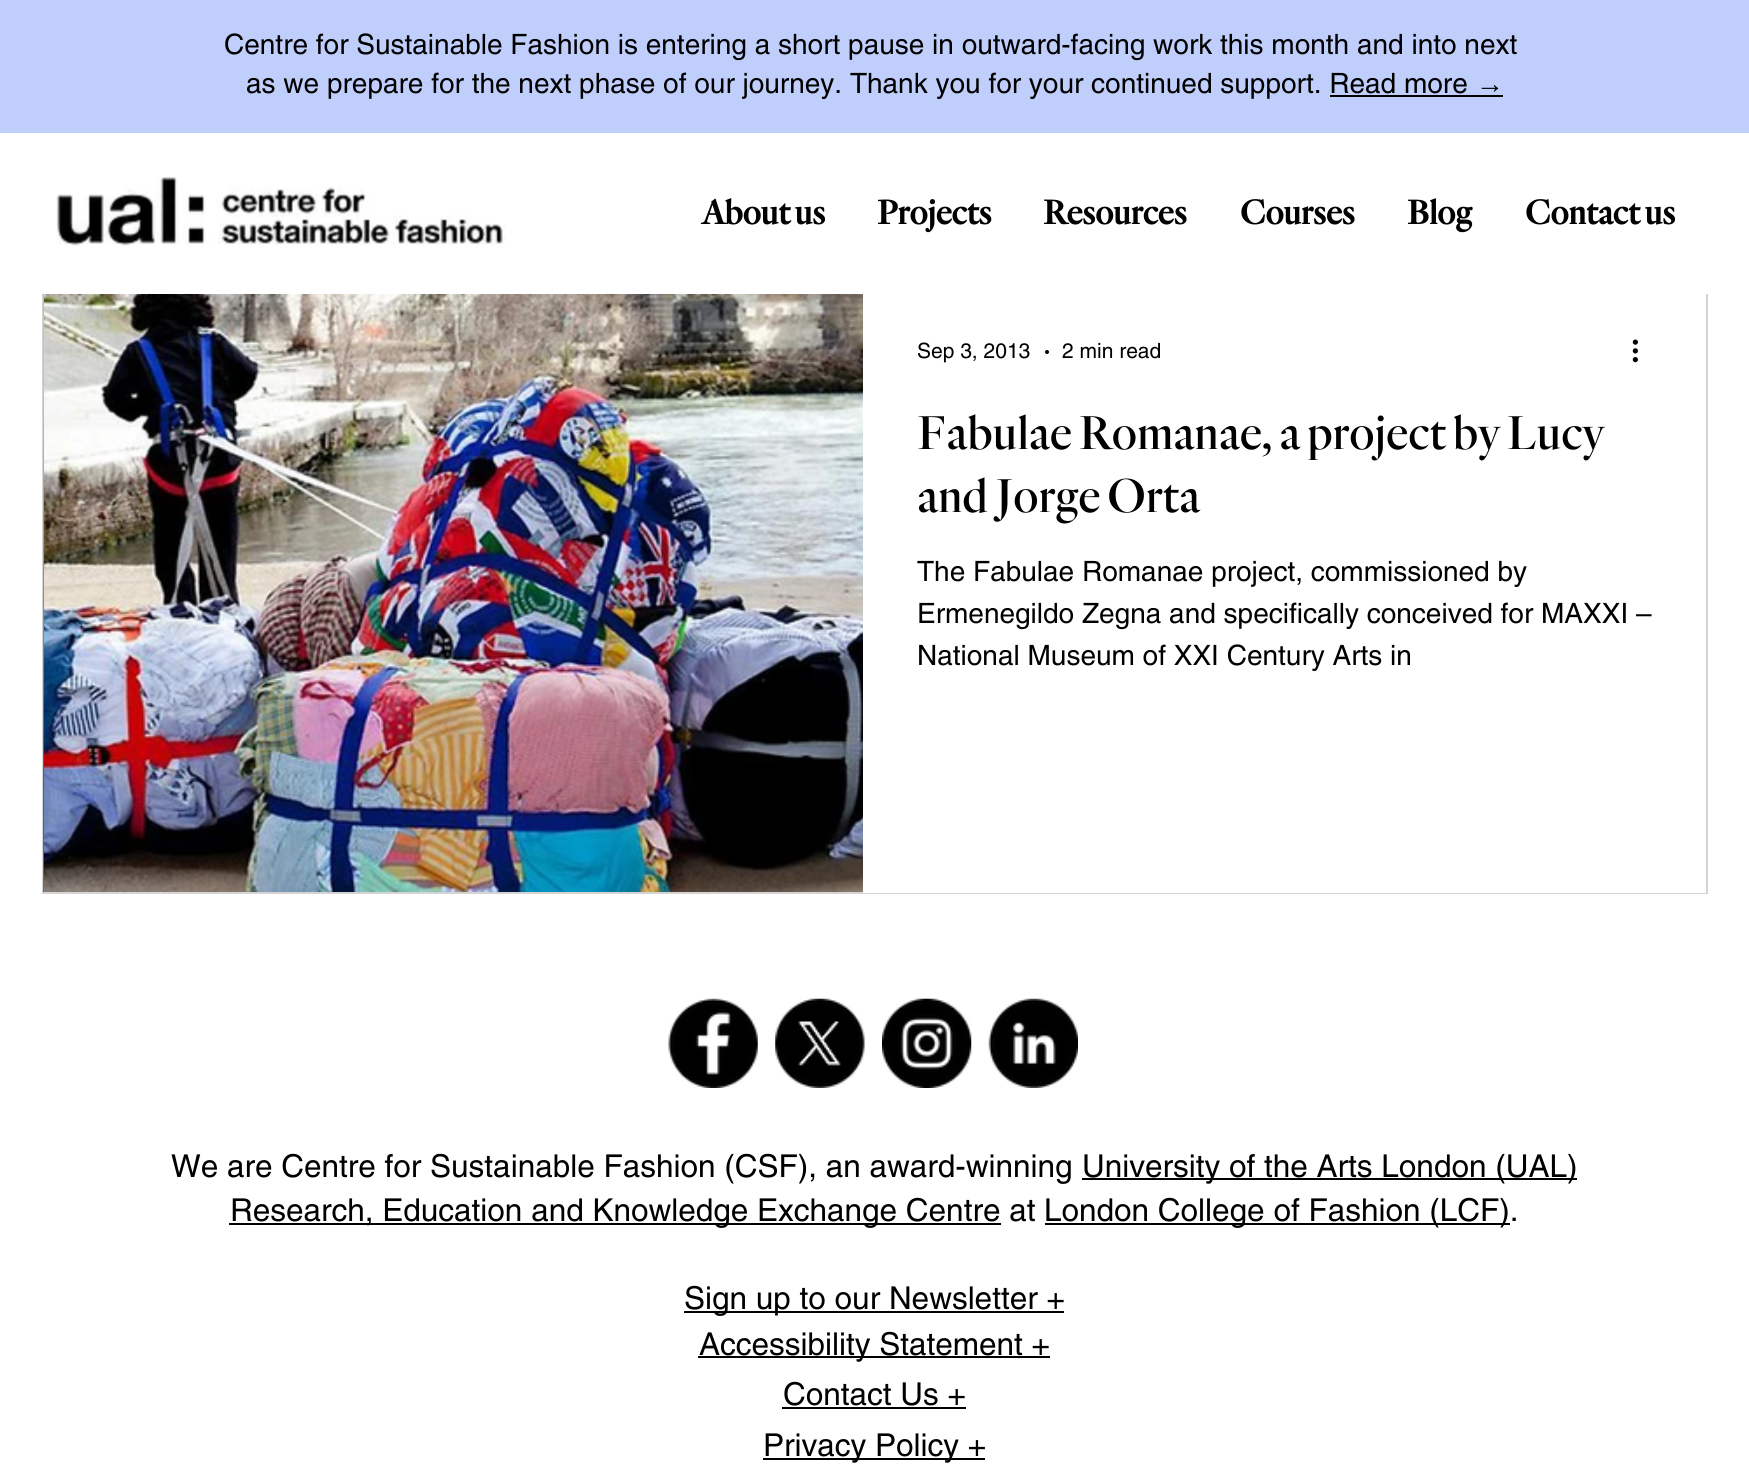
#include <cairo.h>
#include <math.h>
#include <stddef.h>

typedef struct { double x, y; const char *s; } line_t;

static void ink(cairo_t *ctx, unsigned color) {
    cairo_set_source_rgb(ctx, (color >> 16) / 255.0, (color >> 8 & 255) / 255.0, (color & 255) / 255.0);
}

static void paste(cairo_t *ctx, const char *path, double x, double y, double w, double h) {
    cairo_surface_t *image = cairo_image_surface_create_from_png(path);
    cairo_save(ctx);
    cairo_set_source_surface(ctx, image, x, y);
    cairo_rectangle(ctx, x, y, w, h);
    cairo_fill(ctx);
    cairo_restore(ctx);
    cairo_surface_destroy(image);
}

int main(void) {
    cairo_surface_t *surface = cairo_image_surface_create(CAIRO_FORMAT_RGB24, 1749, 1467);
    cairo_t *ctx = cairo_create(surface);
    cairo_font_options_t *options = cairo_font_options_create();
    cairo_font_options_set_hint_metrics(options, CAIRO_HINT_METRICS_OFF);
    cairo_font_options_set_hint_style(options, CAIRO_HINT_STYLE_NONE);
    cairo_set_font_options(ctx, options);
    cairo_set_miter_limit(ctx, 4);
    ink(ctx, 0xFFFFFF);
    cairo_paint(ctx);
    ink(ctx, 0xC0CEFB);
    cairo_rectangle(ctx, 0, 0, 1749, 133);
    cairo_fill(ctx);
    cairo_select_font_face(ctx, "helvetica", CAIRO_FONT_SLANT_NORMAL, CAIRO_FONT_WEIGHT_NORMAL);
    cairo_set_font_size(ctx, 28);
    ink(ctx, 0x000000);
    cairo_move_to(ctx, 224, 54);
    cairo_show_text(ctx, "Centre for Sustainable Fashion is entering a short pause in outward-facing work this month and into next");
    cairo_move_to(ctx, 246, 93);
    cairo_show_text(ctx, "as we prepare for the next phase of our journey. Thank you for your continued support. Read more");
    cairo_select_font_face(ctx, "Liberation Sans", CAIRO_FONT_SLANT_NORMAL, CAIRO_FONT_WEIGHT_NORMAL);
    cairo_move_to(ctx, 1476, 93);
    cairo_show_text(ctx, "→");
    cairo_rectangle(ctx, 1330, 95, 173, 2);
    cairo_fill(ctx);
    paste(ctx, "media/1.png", 56, 176, 450, 70);
    cairo_select_font_face(ctx, "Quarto", CAIRO_FONT_SLANT_NORMAL, CAIRO_FONT_WEIGHT_BOLD);
    cairo_set_font_size(ctx, 35);
    {
        static const line_t items[] = {
            {702, 224, "About us"},
            {877, 224, "Projects"},
            {1043, 224, "Resources"},
            {1240, 224, "Courses"},
            {1407, 224, "Blog"},
            {1525, 224, "Contact us"},
        };
        for (size_t i = 0; i < sizeof items / sizeof *items; i++) {
            cairo_move_to(ctx, items[i].x, items[i].y);
            cairo_show_text(ctx, items[i].s);
        }
    }
    cairo_rectangle(ctx, 43, 279, 1664, 614);
    ink(ctx, 0xD4D4D4);
    cairo_stroke(ctx);
    ink(ctx, 0xFFFFFF);
    cairo_rectangle(ctx, 42, 278, 1666, 16);
    cairo_fill(ctx);
    paste(ctx, "media/2.png", 43, 294, 1, 598);
    paste(ctx, "media/3.png", 44, 294, 819, 598);
    cairo_rectangle(ctx, 863, 892, 843, 1);
    cairo_fill(ctx);
    cairo_select_font_face(ctx, "helvetica", CAIRO_FONT_SLANT_NORMAL, CAIRO_FONT_WEIGHT_NORMAL);
    cairo_set_font_size(ctx, 21);
    ink(ctx, 0x000000);
    cairo_move_to(ctx, 917, 358);
    cairo_show_text(ctx, "Sep 3, 2013");
    cairo_new_path(ctx);
    cairo_arc(ctx, 1047, 352, 2, 0, 2 * M_PI);
    cairo_fill(ctx);
    cairo_move_to(ctx, 1062, 358);
    cairo_show_text(ctx, "2 min read");
    paste(ctx, "media/4.png", 1632, 339, 6, 24);
    cairo_select_font_face(ctx, "Quarto Medium", CAIRO_FONT_SLANT_NORMAL, CAIRO_FONT_WEIGHT_NORMAL);
    cairo_set_font_size(ctx, 49);
    cairo_move_to(ctx, 917, 449);
    cairo_show_text(ctx, "Fabulae Romanae, a project by Lucy");
    cairo_move_to(ctx, 917, 512);
    cairo_show_text(ctx, "and Jorge Orta");
    cairo_select_font_face(ctx, "helvetica", CAIRO_FONT_SLANT_NORMAL, CAIRO_FONT_WEIGHT_NORMAL);
    cairo_set_font_size(ctx, 28);
    {
        static const line_t items[] = {
            {917, 581, "The Fabulae Romanae project, commissioned by"},
            {917, 623, "Ermenegildo Zegna and specifically conceived for MAXXI –"},
            {917, 665, "National Museum of XXI Century Arts in"},
        };
        for (size_t i = 0; i < sizeof items / sizeof *items; i++) {
            cairo_move_to(ctx, items[i].x, items[i].y);
            cairo_show_text(ctx, items[i].s);
        }
    }
    paste(ctx, "media/5.png", 668, 998, 90, 90);
    paste(ctx, "media/6.png", 775, 998, 90, 90);
    paste(ctx, "media/7.png", 882, 998, 90, 90);
    paste(ctx, "media/8.png", 988, 998, 90, 90);
    cairo_set_font_size(ctx, 31.5);
    cairo_move_to(ctx, 171, 1177);
    cairo_show_text(ctx, "We are Centre for Sustainable Fashion (CSF), an award-winning");
    cairo_rectangle(ctx, 1082, 1178, 495, 2);
    cairo_fill(ctx);
    cairo_move_to(ctx, 1082, 1177);
    cairo_show_text(ctx, "University of the Arts London (UAL)");
    cairo_rectangle(ctx, 229, 1223, 772, 2);
    cairo_fill(ctx);
    cairo_move_to(ctx, 230, 1221);
    cairo_show_text(ctx, "Research, Education and Knowledge Exchange Centre at");
    cairo_rectangle(ctx, 1045, 1223, 465, 2);
    cairo_fill(ctx);
    cairo_move_to(ctx, 1044, 1221);
    cairo_show_text(ctx, "London College of Fashion (LCF).");
    cairo_rectangle(ctx, 684, 1311, 380, 2);
    cairo_fill(ctx);
    cairo_move_to(ctx, 684, 1309);
    cairo_show_text(ctx, "Sign up to our Newsletter +");
    cairo_rectangle(ctx, 698, 1356, 352, 2);
    cairo_fill(ctx);
    cairo_move_to(ctx, 699, 1355);
    cairo_show_text(ctx, "Accessibility Statement +");
    cairo_move_to(ctx, 783, 1405);
    cairo_show_text(ctx, "Contact Us +");
    cairo_rectangle(ctx, 782, 1407, 184, 2);
    cairo_fill(ctx);
    cairo_rectangle(ctx, 763, 1458, 222, 2);
    cairo_fill(ctx);
    cairo_move_to(ctx, 763, 1456);
    cairo_show_text(ctx, "Privacy Policy +");
    cairo_surface_write_to_png(surface, "image.png");
    cairo_font_options_destroy(options);
    cairo_destroy(ctx);
    cairo_surface_destroy(surface);
    return 0;
}
